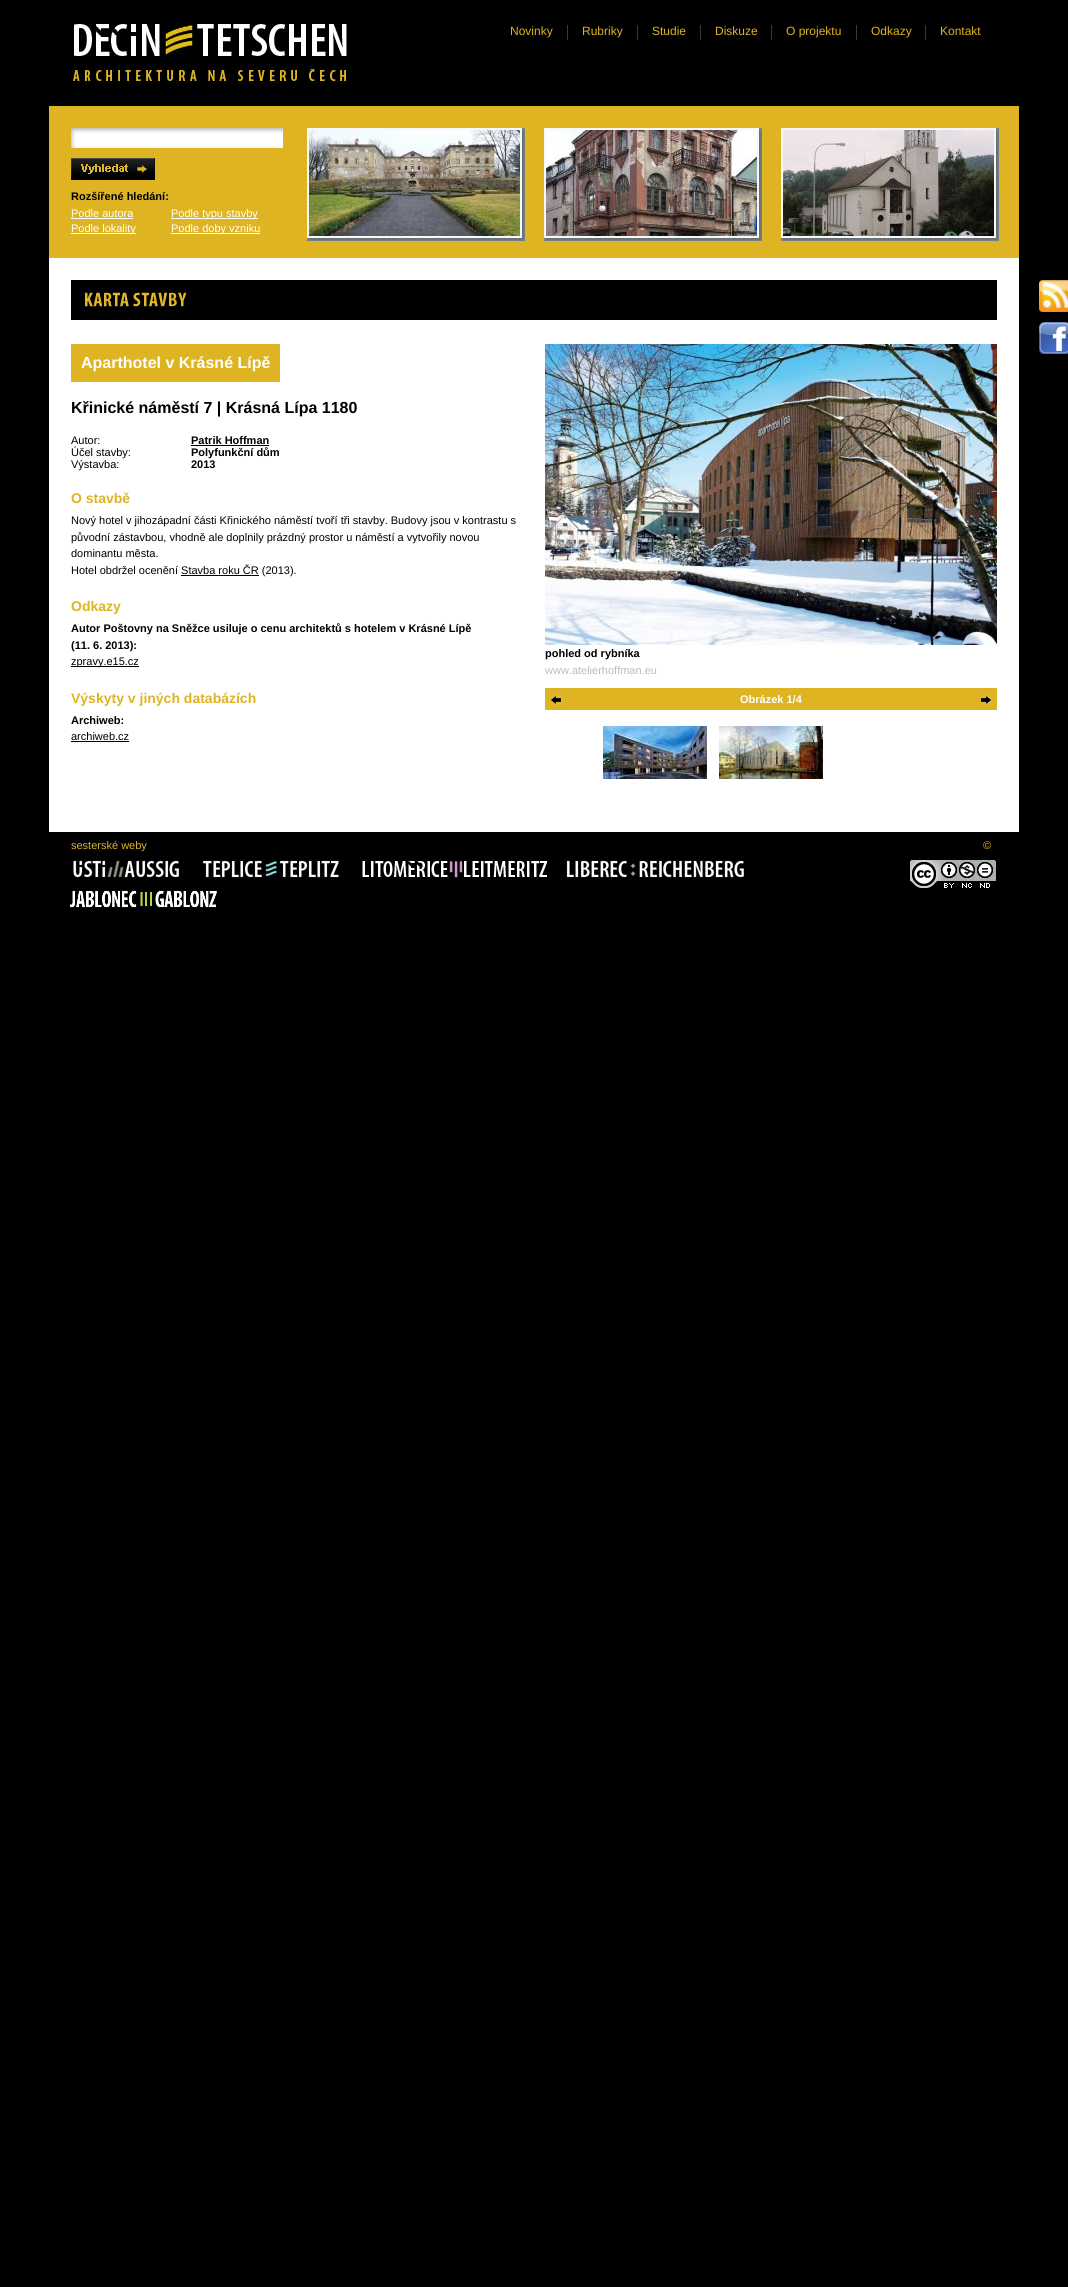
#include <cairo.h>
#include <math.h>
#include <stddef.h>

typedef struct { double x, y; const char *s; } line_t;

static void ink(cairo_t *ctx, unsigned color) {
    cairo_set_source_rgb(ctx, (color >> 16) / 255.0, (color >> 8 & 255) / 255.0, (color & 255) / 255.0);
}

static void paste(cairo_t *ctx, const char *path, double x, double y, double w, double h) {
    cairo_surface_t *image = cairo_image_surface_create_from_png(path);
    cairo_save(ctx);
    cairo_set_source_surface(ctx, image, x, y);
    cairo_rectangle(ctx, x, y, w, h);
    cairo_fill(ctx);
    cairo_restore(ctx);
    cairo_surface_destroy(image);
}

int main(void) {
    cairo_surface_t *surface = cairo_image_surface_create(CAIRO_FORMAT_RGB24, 1068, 2287);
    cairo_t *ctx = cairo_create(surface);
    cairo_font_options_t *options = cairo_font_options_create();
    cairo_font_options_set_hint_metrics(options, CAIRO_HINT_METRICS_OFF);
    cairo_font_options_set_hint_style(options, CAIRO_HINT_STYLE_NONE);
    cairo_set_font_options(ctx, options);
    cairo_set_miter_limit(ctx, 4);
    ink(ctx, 0x000000);
    cairo_paint(ctx);
    paste(ctx, "media/1.png", 73, 24, 274, 57);
    cairo_select_font_face(ctx, "Liberation Sans", CAIRO_FONT_SLANT_NORMAL, CAIRO_FONT_WEIGHT_NORMAL);
    cairo_set_font_size(ctx, 12);
    ink(ctx, 0xDEB422);
    cairo_move_to(ctx, 510, 35);
    cairo_show_text(ctx, "Novinky");
    ink(ctx, 0x363C33);
    cairo_rectangle(ctx, 567, 25, 1, 15);
    cairo_fill(ctx);
    ink(ctx, 0xDEB422);
    cairo_move_to(ctx, 582, 35);
    cairo_show_text(ctx, "Rubriky");
    ink(ctx, 0x363C33);
    cairo_rectangle(ctx, 637, 25, 1, 15);
    cairo_fill(ctx);
    ink(ctx, 0xDEB422);
    cairo_move_to(ctx, 652, 35);
    cairo_show_text(ctx, "Studie");
    ink(ctx, 0x363C33);
    cairo_rectangle(ctx, 700, 25, 1, 15);
    cairo_fill(ctx);
    ink(ctx, 0xDEB422);
    cairo_move_to(ctx, 715, 35);
    cairo_show_text(ctx, "Diskuze");
    ink(ctx, 0x363C33);
    cairo_rectangle(ctx, 771, 25, 1, 15);
    cairo_fill(ctx);
    ink(ctx, 0xDEB422);
    cairo_move_to(ctx, 786, 35);
    cairo_show_text(ctx, "O projektu");
    ink(ctx, 0x363C33);
    cairo_rectangle(ctx, 856, 25, 1, 15);
    cairo_fill(ctx);
    ink(ctx, 0xDEB422);
    cairo_move_to(ctx, 871, 35);
    cairo_show_text(ctx, "Odkazy");
    ink(ctx, 0x363C33);
    cairo_rectangle(ctx, 925, 25, 1, 15);
    cairo_fill(ctx);
    ink(ctx, 0xDEB422);
    cairo_move_to(ctx, 940, 35);
    cairo_show_text(ctx, "Kontakt");
    cairo_rectangle(ctx, 49, 106, 970, 152);
    cairo_fill(ctx);
    paste(ctx, "media/2.png", 71, 128, 212, 20);
    paste(ctx, "media/3.png", 71, 158, 84, 22);
    cairo_select_font_face(ctx, "Liberation Sans", CAIRO_FONT_SLANT_NORMAL, CAIRO_FONT_WEIGHT_BOLD);
    cairo_set_font_size(ctx, 11);
    ink(ctx, 0x000000);
    cairo_move_to(ctx, 71, 200);
    cairo_show_text(ctx, "Rozšířené hledání:");
    cairo_select_font_face(ctx, "Liberation Sans", CAIRO_FONT_SLANT_NORMAL, CAIRO_FONT_WEIGHT_NORMAL);
    ink(ctx, 0xFFFFFF);
    cairo_move_to(ctx, 71, 217);
    cairo_show_text(ctx, "Podle autora");
    cairo_rectangle(ctx, 71, 218, 62, 1);
    cairo_fill(ctx);
    cairo_rectangle(ctx, 171, 218, 87, 1);
    cairo_fill(ctx);
    cairo_move_to(ctx, 171, 217);
    cairo_show_text(ctx, "Podle typu stavby");
    cairo_rectangle(ctx, 71, 233, 65, 1);
    cairo_fill(ctx);
    cairo_move_to(ctx, 71, 232);
    cairo_show_text(ctx, "Podle lokality");
    cairo_rectangle(ctx, 171, 233, 89, 1);
    cairo_fill(ctx);
    cairo_move_to(ctx, 171, 232);
    cairo_show_text(ctx, "Podle doby vzniku");
    paste(ctx, "media/4.png", 307, 128, 218, 113);
    paste(ctx, "media/5.png", 309, 130, 211, 106);
    paste(ctx, "media/4.png", 544, 128, 218, 113);
    paste(ctx, "media/6.png", 546, 130, 211, 106);
    paste(ctx, "media/4.png", 781, 128, 218, 113);
    paste(ctx, "media/7.png", 783, 130, 211, 106);
    paste(ctx, "media/8.png", 1039, 280, 29, 32);
    paste(ctx, "media/9.png", 1039, 322, 29, 32);
    cairo_rectangle(ctx, 49, 258, 970, 574);
    cairo_fill(ctx);
    ink(ctx, 0x000000);
    cairo_rectangle(ctx, 71, 280, 926, 40);
    cairo_fill(ctx);
    paste(ctx, "media/10.png", 72, 283, 115, 24);
    ink(ctx, 0xDEB422);
    cairo_rectangle(ctx, 71, 344, 209, 38);
    cairo_fill(ctx);
    cairo_select_font_face(ctx, "Liberation Sans", CAIRO_FONT_SLANT_NORMAL, CAIRO_FONT_WEIGHT_BOLD);
    cairo_set_font_size(ctx, 16);
    ink(ctx, 0xFFFFFF);
    cairo_move_to(ctx, 81, 368);
    cairo_show_text(ctx, "Aparthotel v Krásné Lípě");
    ink(ctx, 0x000000);
    cairo_move_to(ctx, 71, 413);
    cairo_show_text(ctx, "Křinické náměstí 7 | Krásná Lípa 1180");
    cairo_select_font_face(ctx, "Liberation Sans", CAIRO_FONT_SLANT_NORMAL, CAIRO_FONT_WEIGHT_NORMAL);
    cairo_set_font_size(ctx, 11);
    cairo_move_to(ctx, 71, 444);
    cairo_show_text(ctx, "Autor:");
    cairo_select_font_face(ctx, "Liberation Sans", CAIRO_FONT_SLANT_NORMAL, CAIRO_FONT_WEIGHT_BOLD);
    cairo_move_to(ctx, 191, 444);
    cairo_show_text(ctx, "Patrik Hoffman");
    cairo_rectangle(ctx, 191, 445, 78, 1);
    cairo_fill(ctx);
    cairo_select_font_face(ctx, "Liberation Sans", CAIRO_FONT_SLANT_NORMAL, CAIRO_FONT_WEIGHT_NORMAL);
    cairo_move_to(ctx, 71, 456);
    cairo_show_text(ctx, "Účel stavby:");
    cairo_select_font_face(ctx, "Liberation Sans", CAIRO_FONT_SLANT_NORMAL, CAIRO_FONT_WEIGHT_BOLD);
    cairo_move_to(ctx, 191, 456);
    cairo_show_text(ctx, "Polyfunkční dům");
    cairo_select_font_face(ctx, "Liberation Sans", CAIRO_FONT_SLANT_NORMAL, CAIRO_FONT_WEIGHT_NORMAL);
    cairo_move_to(ctx, 71, 468);
    cairo_show_text(ctx, "Výstavba:");
    cairo_select_font_face(ctx, "Liberation Sans", CAIRO_FONT_SLANT_NORMAL, CAIRO_FONT_WEIGHT_BOLD);
    cairo_move_to(ctx, 191, 468);
    cairo_show_text(ctx, "2013");
    cairo_set_font_size(ctx, 14);
    ink(ctx, 0xDEB422);
    cairo_move_to(ctx, 71, 503);
    cairo_show_text(ctx, "O stavbě");
    cairo_select_font_face(ctx, "Liberation Sans", CAIRO_FONT_SLANT_NORMAL, CAIRO_FONT_WEIGHT_NORMAL);
    cairo_set_font_size(ctx, 11);
    ink(ctx, 0x000000);
    {
        static const line_t items[] = {
            {71, 524, "Nový hotel v jihozápadní části Křinického náměstí tvoří tři stavby. Budovy jsou v kontrastu s"},
            {71, 541, "původní zástavbou, vhodně ale doplnily prázdný prostor u náměstí a vytvořily novou"},
            {71, 557, "dominantu města."},
            {71, 574, "Hotel obdržel ocenění Stavba roku ČR (2013)."},
        };
        for (size_t i = 0; i < sizeof items / sizeof *items; i++) {
            cairo_move_to(ctx, items[i].x, items[i].y);
            cairo_show_text(ctx, items[i].s);
        }
    }
    cairo_rectangle(ctx, 181, 575, 78, 1);
    cairo_fill(ctx);
    cairo_select_font_face(ctx, "Liberation Sans", CAIRO_FONT_SLANT_NORMAL, CAIRO_FONT_WEIGHT_BOLD);
    cairo_set_font_size(ctx, 14);
    ink(ctx, 0xDEB422);
    cairo_move_to(ctx, 71, 611);
    cairo_show_text(ctx, "Odkazy");
    cairo_set_font_size(ctx, 11);
    ink(ctx, 0x000000);
    cairo_move_to(ctx, 71, 632);
    cairo_show_text(ctx, "Autor Poštovny na Sněžce usiluje o cenu architektů s hotelem v Krásné Lípě");
    cairo_move_to(ctx, 71, 649);
    cairo_show_text(ctx, "(11. 6. 2013):");
    cairo_rectangle(ctx, 71, 666, 68, 1);
    cairo_fill(ctx);
    cairo_select_font_face(ctx, "Liberation Sans", CAIRO_FONT_SLANT_NORMAL, CAIRO_FONT_WEIGHT_NORMAL);
    cairo_move_to(ctx, 71, 665);
    cairo_show_text(ctx, "zpravy.e15.cz");
    cairo_select_font_face(ctx, "Liberation Sans", CAIRO_FONT_SLANT_NORMAL, CAIRO_FONT_WEIGHT_BOLD);
    cairo_set_font_size(ctx, 14);
    ink(ctx, 0xDEB422);
    cairo_move_to(ctx, 71, 703);
    cairo_show_text(ctx, "Výskyty v jiných databázích");
    cairo_set_font_size(ctx, 11);
    ink(ctx, 0x000000);
    cairo_move_to(ctx, 71, 724);
    cairo_show_text(ctx, "Archiweb:");
    cairo_select_font_face(ctx, "Liberation Sans", CAIRO_FONT_SLANT_NORMAL, CAIRO_FONT_WEIGHT_NORMAL);
    cairo_move_to(ctx, 71, 740);
    cairo_show_text(ctx, "archiweb.cz");
    cairo_rectangle(ctx, 71, 741, 58, 1);
    cairo_fill(ctx);
    paste(ctx, "media/11.png", 545, 344, 452, 301);
    cairo_select_font_face(ctx, "Liberation Sans", CAIRO_FONT_SLANT_NORMAL, CAIRO_FONT_WEIGHT_BOLD);
    cairo_move_to(ctx, 545, 657);
    cairo_show_text(ctx, "pohled od rybníka");
    cairo_select_font_face(ctx, "Liberation Sans", CAIRO_FONT_SLANT_NORMAL, CAIRO_FONT_WEIGHT_NORMAL);
    ink(ctx, 0xBBBBBB);
    cairo_move_to(ctx, 545, 674);
    cairo_show_text(ctx, "www.atelierhoffman.eu");
    ink(ctx, 0xDEB422);
    cairo_rectangle(ctx, 545, 688, 452, 22);
    cairo_fill(ctx);
    paste(ctx, "media/12.png", 550, 694, 12, 12);
    cairo_select_font_face(ctx, "Liberation Sans", CAIRO_FONT_SLANT_NORMAL, CAIRO_FONT_WEIGHT_BOLD);
    ink(ctx, 0xFFFFFF);
    cairo_move_to(ctx, 740, 703);
    cairo_show_text(ctx, "Obrázek 1/4");
    paste(ctx, "media/13.png", 980, 694, 12, 12);
    paste(ctx, "media/14.png", 603, 726, 104, 53);
    paste(ctx, "media/15.png", 719, 726, 104, 53);
    cairo_select_font_face(ctx, "Liberation Sans", CAIRO_FONT_SLANT_NORMAL, CAIRO_FONT_WEIGHT_NORMAL);
    ink(ctx, 0xDEB422);
    cairo_move_to(ctx, 71, 849);
    cairo_show_text(ctx, "sesterské weby");
    paste(ctx, "media/16.png", 73, 860, 107, 18);
    paste(ctx, "media/17.png", 202, 860, 137, 18);
    paste(ctx, "media/18.png", 362, 861, 185, 17);
    paste(ctx, "media/19.png", 566, 860, 179, 18);
    paste(ctx, "media/20.png", 70, 890, 147, 18);
    cairo_move_to(ctx, 983, 849);
    cairo_show_text(ctx, "©");
    paste(ctx, "media/21.png", 909, 859, 87, 31);
    cairo_surface_write_to_png(surface, "image.png");
    cairo_font_options_destroy(options);
    cairo_destroy(ctx);
    cairo_surface_destroy(surface);
    return 0;
}
